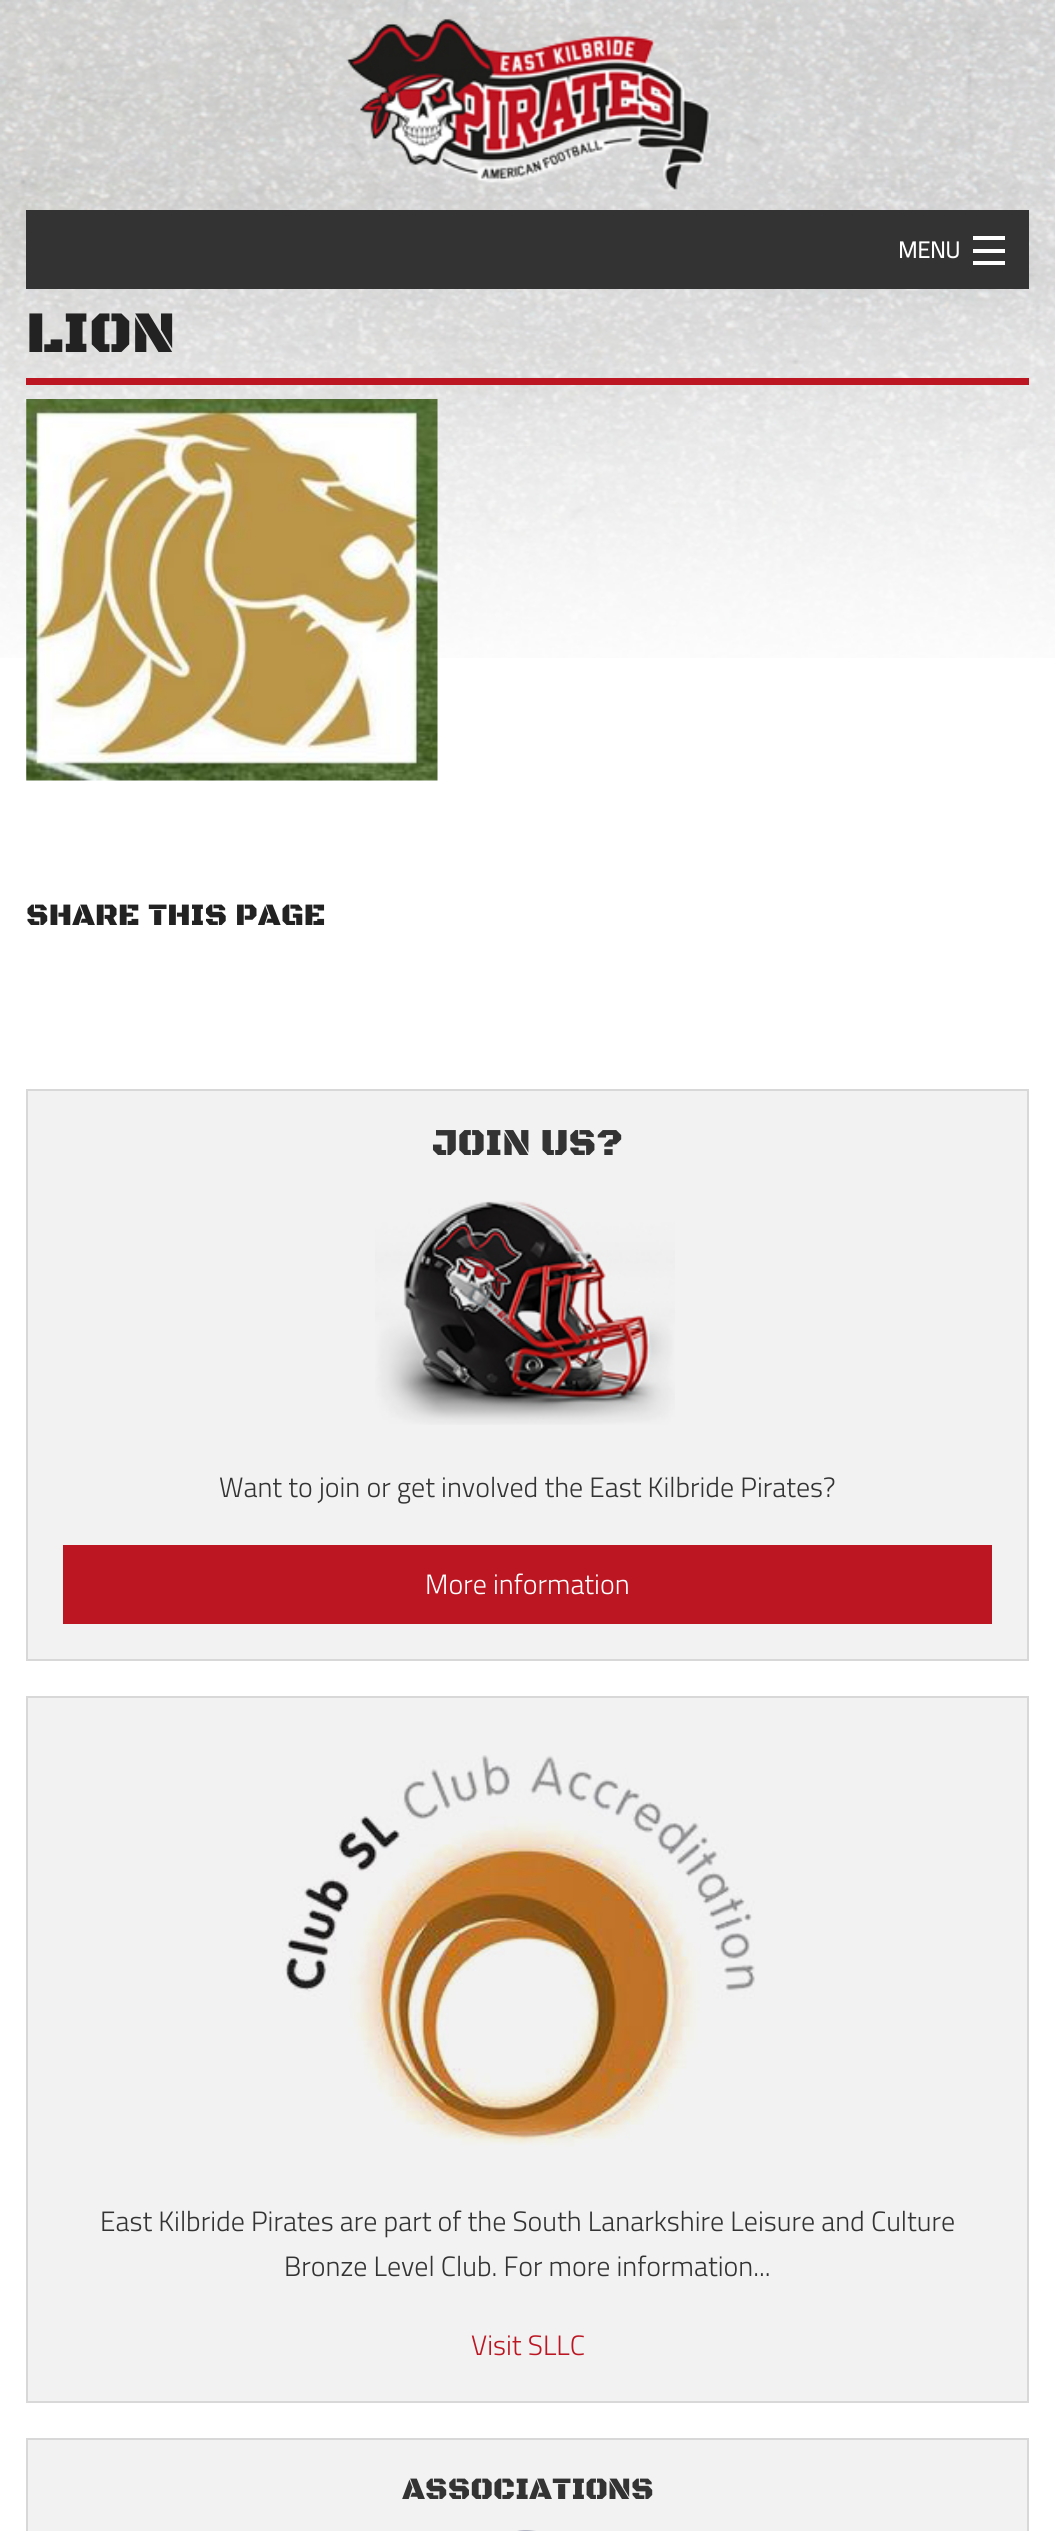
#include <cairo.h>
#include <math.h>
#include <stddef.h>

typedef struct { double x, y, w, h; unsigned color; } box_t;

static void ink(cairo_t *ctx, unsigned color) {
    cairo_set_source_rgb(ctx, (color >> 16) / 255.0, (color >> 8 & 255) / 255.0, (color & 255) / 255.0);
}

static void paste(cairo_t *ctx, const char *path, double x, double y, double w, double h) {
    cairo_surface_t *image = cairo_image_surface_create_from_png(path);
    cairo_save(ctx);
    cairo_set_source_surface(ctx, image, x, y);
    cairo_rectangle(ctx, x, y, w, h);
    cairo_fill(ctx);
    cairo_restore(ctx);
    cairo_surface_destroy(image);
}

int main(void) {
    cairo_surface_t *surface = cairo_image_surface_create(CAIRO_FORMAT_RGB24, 1055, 2531);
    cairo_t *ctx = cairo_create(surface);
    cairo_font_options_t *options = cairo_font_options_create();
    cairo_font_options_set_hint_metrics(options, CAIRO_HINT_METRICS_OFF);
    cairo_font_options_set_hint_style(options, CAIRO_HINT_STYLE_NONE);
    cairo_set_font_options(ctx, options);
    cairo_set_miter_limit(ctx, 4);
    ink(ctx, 0xFFFFFF);
    cairo_paint(ctx);
    paste(ctx, "media/1.png", 0, 0, 1055, 658);
    paste(ctx, "media/2.png", 346, 18, 365, 173);
    ink(ctx, 0x333333);
    cairo_rectangle(ctx, 26, 210, 1003, 79);
    cairo_fill(ctx);
    cairo_select_font_face(ctx, "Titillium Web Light", CAIRO_FONT_SLANT_NORMAL, CAIRO_FONT_WEIGHT_BOLD);
    cairo_set_font_size(ctx, 23);
    ink(ctx, 0xFFFFFF);
    cairo_move_to(ctx, 898, 258);
    cairo_show_text(ctx, "MENU");
    {
        static const box_t items[] = {
            {973, 261, 32, 4, 0xFFFFFF},
            {973, 249, 32, 4, 0xFFFFFF},
            {973, 236, 32, 4, 0xFFFFFF},
            {26, 378, 1003, 7, 0xBC1622},
        };
        for (size_t i = 0; i < sizeof items / sizeof *items; i++) {
            ink(ctx, items[i].color);
            cairo_rectangle(ctx, items[i].x, items[i].y, items[i].w, items[i].h);
            cairo_fill(ctx);
        }
    }
    cairo_select_font_face(ctx, "Black Ops One Black", CAIRO_FONT_SLANT_NORMAL, CAIRO_FONT_WEIGHT_NORMAL);
    cairo_set_font_size(ctx, 59.5);
    ink(ctx, 0x222222);
    cairo_move_to(ctx, 26, 352);
    cairo_show_text(ctx, "LION");
    paste(ctx, "media/3.png", 26, 399, 412, 382);
    cairo_set_font_size(ctx, 31.5);
    cairo_move_to(ctx, 26, 925);
    cairo_show_text(ctx, "SHARE THIS PAGE");
    ink(ctx, 0xF2F2F2);
    cairo_rectangle(ctx, 27, 1090, 1001, 570);
    cairo_fill_preserve(ctx);
    ink(ctx, 0xD8D8D8);
    cairo_stroke(ctx);
    cairo_set_font_size(ctx, 38.5);
    ink(ctx, 0x333333);
    cairo_move_to(ctx, 432, 1155);
    cairo_show_text(ctx, "JOIN US?");
    paste(ctx, "media/4.png", 375, 1200, 300, 225);
    cairo_select_font_face(ctx, "Titillium Web Light Light", CAIRO_FONT_SLANT_NORMAL, CAIRO_FONT_WEIGHT_NORMAL);
    cairo_set_font_size(ctx, 28);
    cairo_move_to(ctx, 219, 1497);
    cairo_show_text(ctx, "Want to join or get involved the East Kilbride Pirates?");
    ink(ctx, 0xBC1622);
    cairo_rectangle(ctx, 63, 1545, 929, 79);
    cairo_fill(ctx);
    ink(ctx, 0xFFFFFF);
    cairo_move_to(ctx, 425, 1594);
    cairo_show_text(ctx, "More information");
    ink(ctx, 0xF2F2F2);
    cairo_rectangle(ctx, 27, 1697, 1001, 705);
    cairo_fill_preserve(ctx);
    ink(ctx, 0xD8D8D8);
    cairo_stroke(ctx);
    paste(ctx, "media/5.png", 282, 1755, 473, 392);
    ink(ctx, 0x333333);
    cairo_move_to(ctx, 100, 2231);
    cairo_show_text(ctx, "East Kilbride Pirates are part of the South Lanarkshire Leisure and Culture");
    cairo_move_to(ctx, 284, 2276);
    cairo_show_text(ctx, "Bronze Level Club. For more information...");
    ink(ctx, 0xBC1622);
    cairo_move_to(ctx, 471, 2355);
    cairo_show_text(ctx, "Visit SLLC");
    ink(ctx, 0xF2F2F2);
    cairo_rectangle(ctx, 27, 2439, 1001, 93);
    cairo_fill_preserve(ctx);
    ink(ctx, 0xD8D8D8);
    cairo_stroke(ctx);
    cairo_select_font_face(ctx, "Black Ops One Black", CAIRO_FONT_SLANT_NORMAL, CAIRO_FONT_WEIGHT_NORMAL);
    cairo_set_font_size(ctx, 31.5);
    ink(ctx, 0x333333);
    cairo_move_to(ctx, 402, 2499);
    cairo_show_text(ctx, "ASSOCIATIONS");
    paste(ctx, "media/6.png", 517, 2530, 19, 1);
    cairo_surface_write_to_png(surface, "image.png");
    cairo_font_options_destroy(options);
    cairo_destroy(ctx);
    cairo_surface_destroy(surface);
    return 0;
}
